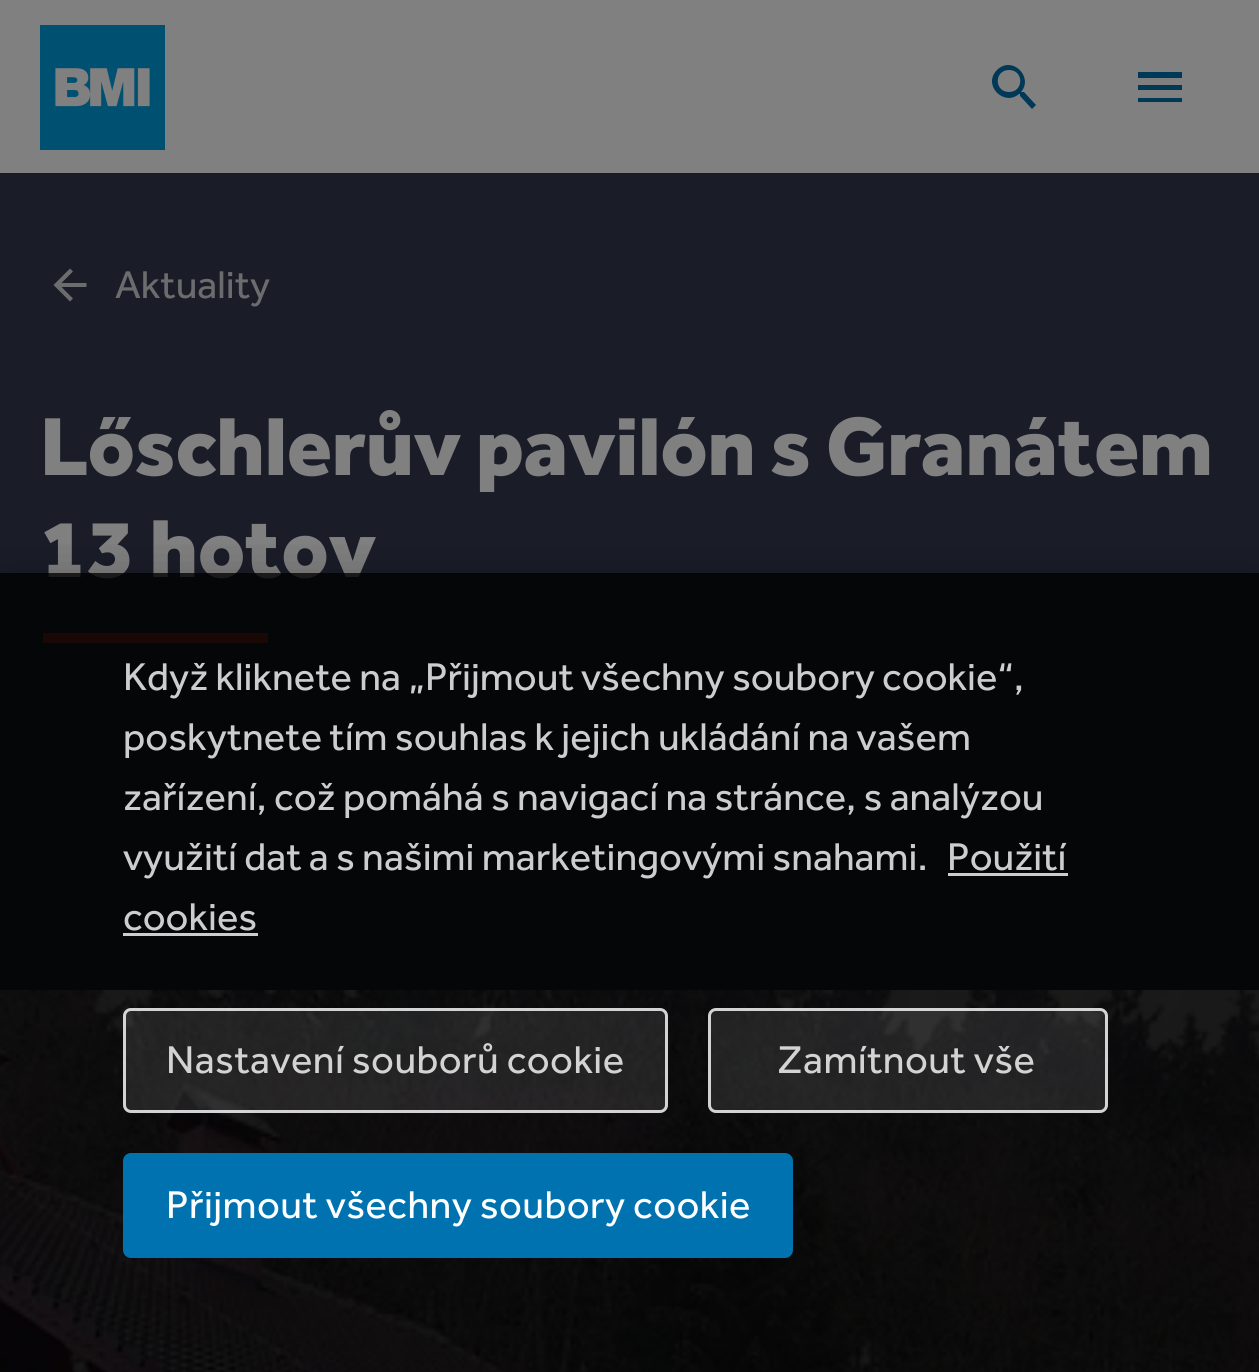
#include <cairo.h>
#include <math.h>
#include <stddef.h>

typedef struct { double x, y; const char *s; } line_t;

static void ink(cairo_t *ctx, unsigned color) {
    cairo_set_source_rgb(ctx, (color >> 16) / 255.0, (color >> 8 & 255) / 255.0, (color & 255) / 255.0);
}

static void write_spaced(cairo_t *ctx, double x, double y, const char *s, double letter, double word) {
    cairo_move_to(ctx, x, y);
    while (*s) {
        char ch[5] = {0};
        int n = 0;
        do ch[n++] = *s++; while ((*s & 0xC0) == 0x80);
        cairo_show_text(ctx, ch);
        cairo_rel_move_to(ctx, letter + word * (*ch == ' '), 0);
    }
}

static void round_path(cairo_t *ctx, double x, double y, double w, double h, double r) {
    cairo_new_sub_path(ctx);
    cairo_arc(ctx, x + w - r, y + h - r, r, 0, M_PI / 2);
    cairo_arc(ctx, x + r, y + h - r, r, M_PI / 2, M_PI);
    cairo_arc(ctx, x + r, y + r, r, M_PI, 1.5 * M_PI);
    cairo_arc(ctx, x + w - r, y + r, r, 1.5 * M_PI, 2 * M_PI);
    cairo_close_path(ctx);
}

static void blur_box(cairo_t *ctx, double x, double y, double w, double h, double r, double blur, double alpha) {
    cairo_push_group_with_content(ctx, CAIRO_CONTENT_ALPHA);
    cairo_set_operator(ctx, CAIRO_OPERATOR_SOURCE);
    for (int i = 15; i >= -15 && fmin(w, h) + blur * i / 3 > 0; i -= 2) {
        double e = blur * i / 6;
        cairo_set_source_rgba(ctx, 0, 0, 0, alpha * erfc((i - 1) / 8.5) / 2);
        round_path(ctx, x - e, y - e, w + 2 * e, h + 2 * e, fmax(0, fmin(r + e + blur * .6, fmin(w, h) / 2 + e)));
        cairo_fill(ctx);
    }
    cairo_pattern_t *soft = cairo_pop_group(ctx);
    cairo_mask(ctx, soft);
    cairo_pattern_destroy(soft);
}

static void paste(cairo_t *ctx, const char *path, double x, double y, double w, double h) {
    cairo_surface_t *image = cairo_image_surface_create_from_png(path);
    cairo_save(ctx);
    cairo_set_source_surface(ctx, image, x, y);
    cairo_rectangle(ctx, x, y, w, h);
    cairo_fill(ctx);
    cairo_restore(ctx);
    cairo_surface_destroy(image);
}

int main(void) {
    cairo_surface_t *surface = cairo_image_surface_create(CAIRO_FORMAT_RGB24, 1259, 1372);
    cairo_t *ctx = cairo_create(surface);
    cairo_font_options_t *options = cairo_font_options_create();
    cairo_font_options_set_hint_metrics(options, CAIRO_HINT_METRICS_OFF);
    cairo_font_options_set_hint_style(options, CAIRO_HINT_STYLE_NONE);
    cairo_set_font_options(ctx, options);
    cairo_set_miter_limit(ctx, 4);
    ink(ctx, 0x1A1C28);
    cairo_paint(ctx);
    ink(ctx, 0x808080);
    cairo_rectangle(ctx, 0, 0, 1259, 173);
    cairo_fill(ctx);
    paste(ctx, "media/1.png", 40, 25, 125, 125);
    ink(ctx, 0x003958);
    cairo_new_path(ctx);
    cairo_move_to(ctx, 1024, 92);
    cairo_line_to(ctx, 1022, 92);
    cairo_line_to(ctx, 1021, 92);
    cairo_curve_to(ctx, 1034, 77, 1012, 55, 997, 70);
    cairo_curve_to(ctx, 982, 85, 1004, 107, 1019, 94);
    cairo_line_to(ctx, 1020, 94);
    cairo_line_to(ctx, 1020, 96);
    cairo_line_to(ctx, 1032, 109);
    cairo_line_to(ctx, 1036, 105);
    cairo_close_path(ctx);
    cairo_move_to(ctx, 1009, 92);
    cairo_curve_to(ctx, 994, 92, 994, 70, 1009, 70);
    cairo_curve_to(ctx, 1024, 70, 1024, 92, 1009, 92);
    cairo_close_path(ctx);
    cairo_fill(ctx);
    cairo_new_path(ctx);
    cairo_move_to(ctx, 1138, 102);
    cairo_line_to(ctx, 1182, 102);
    cairo_line_to(ctx, 1182, 98);
    cairo_line_to(ctx, 1138, 98);
    cairo_close_path(ctx);
    cairo_move_to(ctx, 1138, 90);
    cairo_line_to(ctx, 1182, 90);
    cairo_line_to(ctx, 1182, 85);
    cairo_line_to(ctx, 1138, 85);
    cairo_close_path(ctx);
    cairo_move_to(ctx, 1138, 72);
    cairo_line_to(ctx, 1138, 78);
    cairo_line_to(ctx, 1182, 78);
    cairo_line_to(ctx, 1182, 72);
    cairo_close_path(ctx);
    cairo_fill(ctx);
    ink(ctx, 0x6B6C6E);
    cairo_new_path(ctx);
    cairo_move_to(ctx, 86.5, 283);
    cairo_line_to(ctx, 61.5, 283);
    cairo_line_to(ctx, 73, 271.5);
    cairo_line_to(ctx, 70, 268.5);
    cairo_line_to(ctx, 53.5, 285);
    cairo_line_to(ctx, 70, 301.5);
    cairo_line_to(ctx, 73, 298.5);
    cairo_line_to(ctx, 61.5, 287);
    cairo_line_to(ctx, 86.5, 287);
    cairo_close_path(ctx);
    cairo_fill(ctx);
    cairo_select_font_face(ctx, "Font", CAIRO_FONT_SLANT_NORMAL, CAIRO_FONT_WEIGHT_NORMAL);
    cairo_set_font_size(ctx, 40);
    cairo_move_to(ctx, 115, 298);
    cairo_show_text(ctx, "Aktuality");
    cairo_select_font_face(ctx, "Font Black", CAIRO_FONT_SLANT_NORMAL, CAIRO_FONT_WEIGHT_NORMAL);
    cairo_set_font_size(ctx, 85);
    ink(ctx, 0x808080);
    write_spaced(ctx, 40, 475, "Lőschlerův pavilón s Granátem", -0.5, 0);
    write_spaced(ctx, 40, 577, "13 hotov", -0.5, 0);
    ink(ctx, 0x7F2A1F);
    cairo_rectangle(ctx, 43, 633, 225, 10);
    cairo_fill(ctx);
    paste(ctx, "media/2.png", 0, 990, 1259, 382);
    cairo_save(ctx);
    cairo_rectangle(ctx, 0, 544, 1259, 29);
    cairo_clip(ctx);
    ink(ctx, 0x000000);
    blur_box(ctx, 0, 573, 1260, 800, 0, 22.5, 0.2);
    cairo_restore(ctx);
    cairo_set_source_rgba(ctx, 0, 0, 0, 0.8);
    cairo_rectangle(ctx, 0, 573, 1259, 799);
    cairo_fill(ctx);
    cairo_select_font_face(ctx, "Font", CAIRO_FONT_SLANT_NORMAL, CAIRO_FONT_WEIGHT_NORMAL);
    cairo_set_font_size(ctx, 40);
    ink(ctx, 0xCDCDCE);
    {
        static const line_t items[] = {
            {123, 690, "Když kliknete na „Přijmout všechny soubory cookie“,"},
            {123, 750, "poskytnete tím souhlas k jejich ukládání na vašem"},
            {123, 810, "zařízení, což pomáhá s navigací na stránce, s analýzou"},
            {123, 870, "využití dat a s našimi marketingovými snahami."},
            {947, 870, "Použití"},
        };
        for (size_t i = 0; i < sizeof items / sizeof *items; i++) {
            cairo_move_to(ctx, items[i].x, items[i].y);
            cairo_show_text(ctx, items[i].s);
        }
    }
    cairo_rectangle(ctx, 948, 873, 120, 3);
    cairo_fill(ctx);
    cairo_move_to(ctx, 123, 930);
    cairo_show_text(ctx, "cookies");
    cairo_rectangle(ctx, 123, 933, 135, 3);
    cairo_fill(ctx);
    cairo_set_source_rgba(ctx, 1, 1, 1, 0.1);
    round_path(ctx, 123, 1008, 545, 105, 8);
    cairo_fill(ctx);
    round_path(ctx, 124.5, 1009.5, 542, 102, 6.5);
    cairo_set_source_rgba(ctx, 1, 1, 1, 0.8);
    cairo_set_line_width(ctx, 3);
    cairo_stroke(ctx);
    ink(ctx, 0xD3D3D3);
    write_spaced(ctx, 166, 1073, "Nastavení souborů cookie", 0.4, 0);
    cairo_set_source_rgba(ctx, 1, 1, 1, 0.1);
    round_path(ctx, 708, 1008, 400, 105, 8);
    cairo_fill(ctx);
    round_path(ctx, 709.5, 1009.5, 397, 102, 6.5);
    cairo_set_source_rgba(ctx, 1, 1, 1, 0.8);
    cairo_stroke(ctx);
    ink(ctx, 0xD3D3D3);
    write_spaced(ctx, 777, 1073, "Zamítnout vše", 0.4, 0);
    ink(ctx, 0x0072B0);
    round_path(ctx, 124.5, 1154.5, 667, 102, 6.5);
    cairo_fill_preserve(ctx);
    cairo_stroke(ctx);
    ink(ctx, 0xFFFFFF);
    write_spaced(ctx, 166, 1218, "Přijmout všechny soubory cookie", 0.4, 0);
    cairo_surface_write_to_png(surface, "image.png");
    cairo_font_options_destroy(options);
    cairo_destroy(ctx);
    cairo_surface_destroy(surface);
    return 0;
}
